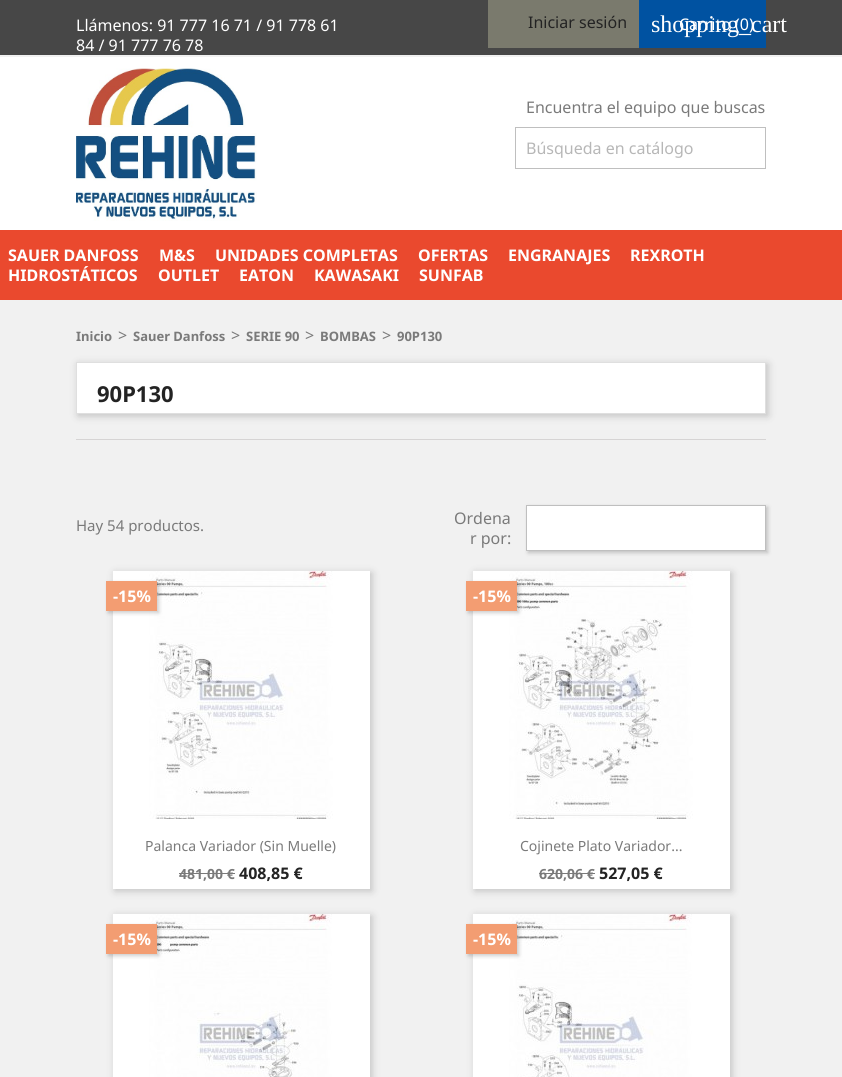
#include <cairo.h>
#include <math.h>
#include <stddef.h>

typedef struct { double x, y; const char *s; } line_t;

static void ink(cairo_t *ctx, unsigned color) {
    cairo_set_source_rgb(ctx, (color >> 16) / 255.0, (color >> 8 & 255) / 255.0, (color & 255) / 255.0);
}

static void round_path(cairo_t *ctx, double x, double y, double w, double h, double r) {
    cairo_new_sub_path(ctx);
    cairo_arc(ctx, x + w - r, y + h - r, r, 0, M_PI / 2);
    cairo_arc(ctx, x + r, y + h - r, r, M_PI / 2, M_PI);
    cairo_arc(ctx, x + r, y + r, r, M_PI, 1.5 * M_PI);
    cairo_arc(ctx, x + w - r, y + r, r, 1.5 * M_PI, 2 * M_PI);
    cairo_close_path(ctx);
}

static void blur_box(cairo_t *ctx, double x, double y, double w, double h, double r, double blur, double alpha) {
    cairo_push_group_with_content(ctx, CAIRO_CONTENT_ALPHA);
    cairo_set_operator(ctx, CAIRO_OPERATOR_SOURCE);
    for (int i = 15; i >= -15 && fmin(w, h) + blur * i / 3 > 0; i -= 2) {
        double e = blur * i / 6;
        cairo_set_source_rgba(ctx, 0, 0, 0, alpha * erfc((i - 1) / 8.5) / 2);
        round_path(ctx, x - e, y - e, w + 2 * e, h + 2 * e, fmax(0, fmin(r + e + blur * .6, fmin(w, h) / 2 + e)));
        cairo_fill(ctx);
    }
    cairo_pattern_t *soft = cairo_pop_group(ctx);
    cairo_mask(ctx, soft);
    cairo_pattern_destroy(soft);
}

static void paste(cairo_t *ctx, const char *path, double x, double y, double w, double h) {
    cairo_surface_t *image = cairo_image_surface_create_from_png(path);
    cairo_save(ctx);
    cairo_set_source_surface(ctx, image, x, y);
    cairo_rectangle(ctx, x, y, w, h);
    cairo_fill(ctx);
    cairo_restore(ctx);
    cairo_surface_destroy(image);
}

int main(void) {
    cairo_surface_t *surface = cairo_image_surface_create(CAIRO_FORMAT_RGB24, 842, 1077);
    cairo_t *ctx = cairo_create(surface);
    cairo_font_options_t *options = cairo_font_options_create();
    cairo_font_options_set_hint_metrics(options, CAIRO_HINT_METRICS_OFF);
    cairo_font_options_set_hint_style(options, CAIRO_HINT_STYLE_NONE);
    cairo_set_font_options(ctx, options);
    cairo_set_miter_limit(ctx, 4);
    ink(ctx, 0xFFFFFF);
    cairo_paint(ctx);
    ink(ctx, 0x474747);
    cairo_rectangle(ctx, 0, 0, 842, 55);
    cairo_fill(ctx);
    ink(ctx, 0xF1F1F1);
    cairo_rectangle(ctx, 0, 55, 842, 2);
    cairo_fill(ctx);
    cairo_select_font_face(ctx, "Noto Sans", CAIRO_FONT_SLANT_NORMAL, CAIRO_FONT_WEIGHT_NORMAL);
    cairo_set_font_size(ctx, 16);
    ink(ctx, 0xFFFFFF);
    cairo_move_to(ctx, 76, 31);
    cairo_show_text(ctx, "Llámenos: 91 777 16 71 / 91 778 61");
    cairo_move_to(ctx, 76, 51);
    cairo_show_text(ctx, "84 / 91 777 76 78");
    ink(ctx, 0x7A7A6D);
    cairo_rectangle(ctx, 488, 0, 151, 48);
    cairo_fill(ctx);
    ink(ctx, 0x232323);
    cairo_move_to(ctx, 528, 28);
    cairo_show_text(ctx, "Iniciar sesión");
    ink(ctx, 0x0052A1);
    cairo_rectangle(ctx, 639, 0, 127, 48);
    cairo_fill(ctx);
    cairo_select_font_face(ctx, "Liberation Serif", CAIRO_FONT_SLANT_NORMAL, CAIRO_FONT_WEIGHT_NORMAL);
    cairo_set_font_size(ctx, 24);
    ink(ctx, 0xFFFFFF);
    cairo_move_to(ctx, 651, 32);
    cairo_show_text(ctx, "shopping_cart");
    cairo_select_font_face(ctx, "Noto Sans", CAIRO_FONT_SLANT_NORMAL, CAIRO_FONT_WEIGHT_NORMAL);
    cairo_set_font_size(ctx, 16);
    cairo_move_to(ctx, 679, 30);
    cairo_show_text(ctx, "Carrito (0)");
    paste(ctx, "media/1.png", 76, 68, 181, 153);
    ink(ctx, 0x7A7A7A);
    cairo_move_to(ctx, 526, 113);
    cairo_show_text(ctx, "Encuentra el equipo que buscas");
    cairo_rectangle(ctx, 515.5, 127.5, 250, 41);
    ink(ctx, 0xBFBFBF);
    cairo_set_line_width(ctx, 1);
    cairo_stroke(ctx);
    ink(ctx, 0xB7B7B7);
    cairo_move_to(ctx, 526, 154);
    cairo_show_text(ctx, "Búsqueda en catálogo");
    ink(ctx, 0xEA492E);
    cairo_rectangle(ctx, 0, 230, 842, 70);
    cairo_fill(ctx);
    cairo_select_font_face(ctx, "Noto Sans", CAIRO_FONT_SLANT_NORMAL, CAIRO_FONT_WEIGHT_BOLD);
    ink(ctx, 0xFFFFFF);
    {
        static const line_t items[] = {
            {8, 261, "SAUER DANFOSS"},
            {159, 261, "M&S"},
            {215, 261, "UNIDADES COMPLETAS"},
            {418, 261, "OFERTAS"},
            {508, 261, "ENGRANAJES"},
            {630, 261, "REXROTH"},
            {8, 281, "HIDROSTÁTICOS"},
            {158, 281, "OUTLET"},
            {239, 281, "EATON"},
            {314, 281, "KAWASAKI"},
            {419, 281, "SUNFAB"},
        };
        for (size_t i = 0; i < sizeof items / sizeof *items; i++) {
            cairo_move_to(ctx, items[i].x, items[i].y);
            cairo_show_text(ctx, items[i].s);
        }
    }
    ink(ctx, 0xF1F1F1);
    cairo_rectangle(ctx, 0, 300, 842, 777);
    cairo_fill(ctx);
    cairo_set_font_size(ctx, 13);
    ink(ctx, 0x7A7A7A);
    cairo_move_to(ctx, 76, 341);
    cairo_show_text(ctx, "Inicio");
    cairo_select_font_face(ctx, "Noto Sans", CAIRO_FONT_SLANT_NORMAL, CAIRO_FONT_WEIGHT_NORMAL);
    cairo_set_font_size(ctx, 16);
    cairo_move_to(ctx, 118, 341);
    cairo_show_text(ctx, ">");
    cairo_select_font_face(ctx, "Noto Sans", CAIRO_FONT_SLANT_NORMAL, CAIRO_FONT_WEIGHT_BOLD);
    cairo_set_font_size(ctx, 13);
    cairo_move_to(ctx, 133, 341);
    cairo_show_text(ctx, "Sauer Danfoss");
    cairo_select_font_face(ctx, "Noto Sans", CAIRO_FONT_SLANT_NORMAL, CAIRO_FONT_WEIGHT_NORMAL);
    cairo_set_font_size(ctx, 16);
    cairo_move_to(ctx, 231, 341);
    cairo_show_text(ctx, ">");
    cairo_select_font_face(ctx, "Noto Sans", CAIRO_FONT_SLANT_NORMAL, CAIRO_FONT_WEIGHT_BOLD);
    cairo_set_font_size(ctx, 13);
    cairo_move_to(ctx, 246, 341);
    cairo_show_text(ctx, "SERIE 90");
    cairo_select_font_face(ctx, "Noto Sans", CAIRO_FONT_SLANT_NORMAL, CAIRO_FONT_WEIGHT_NORMAL);
    cairo_set_font_size(ctx, 16);
    cairo_move_to(ctx, 305, 341);
    cairo_show_text(ctx, ">");
    cairo_select_font_face(ctx, "Noto Sans", CAIRO_FONT_SLANT_NORMAL, CAIRO_FONT_WEIGHT_BOLD);
    cairo_set_font_size(ctx, 13);
    cairo_move_to(ctx, 320, 341);
    cairo_show_text(ctx, "BOMBAS");
    cairo_select_font_face(ctx, "Noto Sans", CAIRO_FONT_SLANT_NORMAL, CAIRO_FONT_WEIGHT_NORMAL);
    cairo_set_font_size(ctx, 16);
    cairo_move_to(ctx, 382, 341);
    cairo_show_text(ctx, ">");
    cairo_select_font_face(ctx, "Noto Sans", CAIRO_FONT_SLANT_NORMAL, CAIRO_FONT_WEIGHT_BOLD);
    cairo_set_font_size(ctx, 13);
    cairo_move_to(ctx, 397, 341);
    cairo_show_text(ctx, "90P130");
    ink(ctx, 0x000000);
    blur_box(ctx, 78, 364, 690, 52, 0, 4, 0.2);
    ink(ctx, 0xFFFFFF);
    cairo_rectangle(ctx, 76.5, 362.5, 689, 51);
    cairo_fill_preserve(ctx);
    ink(ctx, 0xDFDFDF);
    cairo_stroke(ctx);
    cairo_set_font_size(ctx, 22);
    ink(ctx, 0x232323);
    cairo_move_to(ctx, 97, 402);
    cairo_show_text(ctx, "90P130");
    ink(ctx, 0xD6D4D4);
    cairo_rectangle(ctx, 76, 439, 690, 1);
    cairo_fill(ctx);
    cairo_select_font_face(ctx, "Noto Sans", CAIRO_FONT_SLANT_NORMAL, CAIRO_FONT_WEIGHT_NORMAL);
    cairo_set_font_size(ctx, 15);
    ink(ctx, 0x7A7A7A);
    cairo_move_to(ctx, 76, 531);
    cairo_show_text(ctx, "Hay 54 productos.");
    cairo_set_font_size(ctx, 16);
    cairo_move_to(ctx, 454, 524);
    cairo_show_text(ctx, "Ordena");
    cairo_move_to(ctx, 470, 544);
    cairo_show_text(ctx, "r por:");
    ink(ctx, 0x000000);
    blur_box(ctx, 528, 507, 240, 46, 0, 2, 0.2);
    ink(ctx, 0xFFFFFF);
    cairo_rectangle(ctx, 526.5, 505.5, 239, 45);
    cairo_fill_preserve(ctx);
    ink(ctx, 0xBFBFBF);
    cairo_stroke(ctx);
    ink(ctx, 0x000000);
    blur_box(ctx, 115, 573, 257, 318, 0, 4, 0.2);
    ink(ctx, 0xFFFFFF);
    cairo_rectangle(ctx, 113, 571, 257, 318);
    cairo_fill(ctx);
    paste(ctx, "media/2.png", 149, 571, 184, 248);
    ink(ctx, 0x000000);
    blur_box(ctx, 108, 583, 51, 30, 0, 2, 0.2);
    ink(ctx, 0xF39D72);
    cairo_rectangle(ctx, 106, 581, 51, 30);
    cairo_fill(ctx);
    cairo_select_font_face(ctx, "Noto Sans", CAIRO_FONT_SLANT_NORMAL, CAIRO_FONT_WEIGHT_BOLD);
    ink(ctx, 0xFFFFFF);
    cairo_move_to(ctx, 113, 602);
    cairo_show_text(ctx, "-15%");
    cairo_set_font_size(ctx, 14);
    ink(ctx, 0x7A7A7A);
    cairo_move_to(ctx, 179, 879);
    cairo_show_text(ctx, "481,00 €");
    cairo_rectangle(ctx, 179, 873, 56, 1);
    cairo_fill(ctx);
    cairo_set_font_size(ctx, 16);
    ink(ctx, 0x232323);
    cairo_move_to(ctx, 239, 879);
    cairo_show_text(ctx, "408,85 €");
    cairo_select_font_face(ctx, "Noto Sans", CAIRO_FONT_SLANT_NORMAL, CAIRO_FONT_WEIGHT_NORMAL);
    cairo_set_font_size(ctx, 14);
    ink(ctx, 0x7A7A7A);
    cairo_move_to(ctx, 145, 851);
    cairo_show_text(ctx, "Palanca Variador (Sin Muelle)");
    ink(ctx, 0x000000);
    blur_box(ctx, 475, 573, 257, 318, 0, 4, 0.2);
    ink(ctx, 0xFFFFFF);
    cairo_rectangle(ctx, 473, 571, 257, 318);
    cairo_fill(ctx);
    paste(ctx, "media/3.png", 509, 571, 184, 248);
    ink(ctx, 0x000000);
    blur_box(ctx, 468, 583, 51, 30, 0, 2, 0.2);
    ink(ctx, 0xF39D72);
    cairo_rectangle(ctx, 466, 581, 51, 30);
    cairo_fill(ctx);
    cairo_select_font_face(ctx, "Noto Sans", CAIRO_FONT_SLANT_NORMAL, CAIRO_FONT_WEIGHT_BOLD);
    cairo_set_font_size(ctx, 16);
    ink(ctx, 0xFFFFFF);
    cairo_move_to(ctx, 473, 602);
    cairo_show_text(ctx, "-15%");
    cairo_set_font_size(ctx, 14);
    ink(ctx, 0x7A7A7A);
    cairo_move_to(ctx, 539, 879);
    cairo_show_text(ctx, "620,06 €");
    cairo_rectangle(ctx, 539, 873, 56, 1);
    cairo_fill(ctx);
    cairo_set_font_size(ctx, 16);
    ink(ctx, 0x232323);
    cairo_move_to(ctx, 599, 879);
    cairo_show_text(ctx, "527,05 €");
    cairo_select_font_face(ctx, "Noto Sans", CAIRO_FONT_SLANT_NORMAL, CAIRO_FONT_WEIGHT_NORMAL);
    cairo_set_font_size(ctx, 14);
    ink(ctx, 0x7A7A7A);
    cairo_move_to(ctx, 520, 851);
    cairo_show_text(ctx, "Cojinete Plato Variador...");
    ink(ctx, 0x000000);
    blur_box(ctx, 115, 916, 257, 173, 0, 4, 0.2);
    ink(ctx, 0xFFFFFF);
    cairo_rectangle(ctx, 113, 914, 257, 163);
    cairo_fill(ctx);
    paste(ctx, "media/4.png", 149, 914, 183, 163);
    ink(ctx, 0x000000);
    blur_box(ctx, 108, 926, 51, 30, 0, 2, 0.2);
    ink(ctx, 0xF39D72);
    cairo_rectangle(ctx, 106, 924, 51, 30);
    cairo_fill(ctx);
    cairo_select_font_face(ctx, "Noto Sans", CAIRO_FONT_SLANT_NORMAL, CAIRO_FONT_WEIGHT_BOLD);
    cairo_set_font_size(ctx, 16);
    ink(ctx, 0xFFFFFF);
    cairo_move_to(ctx, 113, 945);
    cairo_show_text(ctx, "-15%");
    ink(ctx, 0x000000);
    blur_box(ctx, 475, 916, 257, 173, 0, 4, 0.2);
    ink(ctx, 0xFFFFFF);
    cairo_rectangle(ctx, 473, 914, 257, 163);
    cairo_fill(ctx);
    paste(ctx, "media/5.png", 509, 914, 183, 163);
    ink(ctx, 0x000000);
    blur_box(ctx, 468, 926, 51, 30, 0, 2, 0.2);
    ink(ctx, 0xF39D72);
    cairo_rectangle(ctx, 466, 924, 51, 30);
    cairo_fill(ctx);
    ink(ctx, 0xFFFFFF);
    cairo_move_to(ctx, 473, 945);
    cairo_show_text(ctx, "-15%");
    cairo_surface_write_to_png(surface, "image.png");
    cairo_font_options_destroy(options);
    cairo_destroy(ctx);
    cairo_surface_destroy(surface);
    return 0;
}
